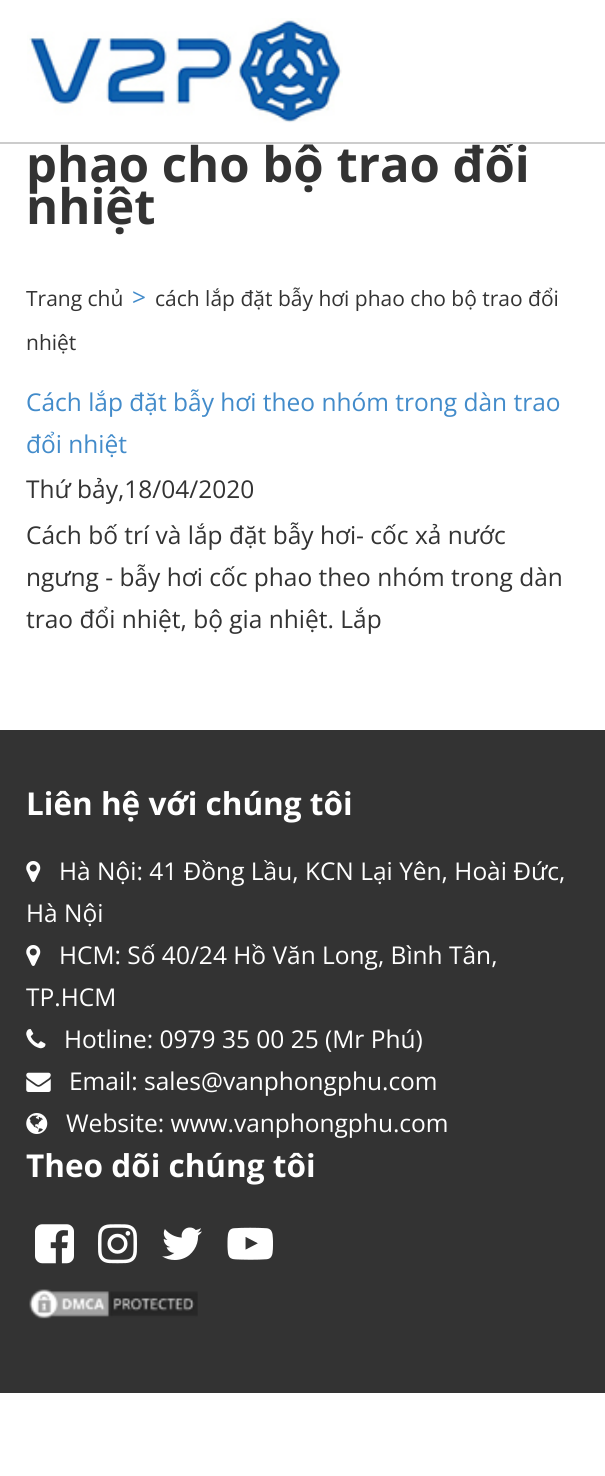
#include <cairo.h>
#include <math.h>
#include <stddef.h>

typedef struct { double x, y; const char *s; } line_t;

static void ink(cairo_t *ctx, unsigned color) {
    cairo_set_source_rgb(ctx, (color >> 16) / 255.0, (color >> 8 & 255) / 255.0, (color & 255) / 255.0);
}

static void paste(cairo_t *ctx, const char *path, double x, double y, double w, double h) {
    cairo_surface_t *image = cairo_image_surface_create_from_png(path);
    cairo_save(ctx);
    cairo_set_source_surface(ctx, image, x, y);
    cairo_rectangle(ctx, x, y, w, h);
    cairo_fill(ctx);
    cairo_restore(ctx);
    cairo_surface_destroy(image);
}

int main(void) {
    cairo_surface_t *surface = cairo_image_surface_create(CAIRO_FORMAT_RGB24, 605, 1476);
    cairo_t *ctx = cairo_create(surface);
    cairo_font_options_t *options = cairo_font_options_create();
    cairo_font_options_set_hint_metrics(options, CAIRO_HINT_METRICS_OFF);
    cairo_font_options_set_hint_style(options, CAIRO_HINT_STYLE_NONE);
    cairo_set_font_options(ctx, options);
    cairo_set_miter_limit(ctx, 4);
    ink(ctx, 0xFFFFFF);
    cairo_paint(ctx);
    cairo_select_font_face(ctx, "Open Sans", CAIRO_FONT_SLANT_NORMAL, CAIRO_FONT_WEIGHT_BOLD);
    cairo_set_font_size(ctx, 49);
    ink(ctx, 0x333333);
    cairo_move_to(ctx, 26, 182);
    cairo_show_text(ctx, "phao cho bộ trao đổi");
    ink(ctx, 0xCCCCCC);
    cairo_new_path(ctx);
    cairo_move_to(ctx, 0, 142);
    cairo_line_to(ctx, 0, 144);
    cairo_line_to(ctx, 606, 144);
    cairo_line_to(ctx, 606, 2);
    cairo_line_to(ctx, 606, 142);
    cairo_close_path(ctx);
    cairo_fill(ctx);
    ink(ctx, 0xFFFFFF);
    cairo_rectangle(ctx, 506, 139, 8, 3);
    cairo_fill(ctx);
    paste(ctx, "media/1.png", 27, 18, 316, 105);
    ink(ctx, 0x333333);
    cairo_move_to(ctx, 26, 224);
    cairo_show_text(ctx, "nhiệt");
    cairo_select_font_face(ctx, "Open Sans", CAIRO_FONT_SLANT_NORMAL, CAIRO_FONT_WEIGHT_NORMAL);
    cairo_set_font_size(ctx, 24.5);
    ink(ctx, 0x428BCA);
    cairo_move_to(ctx, 132, 306);
    cairo_show_text(ctx, ">");
    cairo_set_font_size(ctx, 21);
    ink(ctx, 0x333333);
    {
        static const line_t items[] = {
            {155, 306, "cách lắp đặt bẫy hơi phao cho bộ trao đổi"},
            {26, 350, "nhiệt"},
            {26, 306, "Trang chủ"},
        };
        for (size_t i = 0; i < sizeof items / sizeof *items; i++) {
            cairo_move_to(ctx, items[i].x, items[i].y);
            cairo_show_text(ctx, items[i].s);
        }
    }
    cairo_set_font_size(ctx, 24.5);
    ink(ctx, 0x428BCA);
    cairo_move_to(ctx, 26, 411);
    cairo_show_text(ctx, "Cách lắp đặt bẫy hơi theo nhóm trong dàn trao");
    cairo_move_to(ctx, 26, 453);
    cairo_show_text(ctx, "đổi nhiệt");
    ink(ctx, 0x333333);
    {
        static const line_t items[] = {
            {26, 498, "Thứ bảy,18/04/2020"},
            {26, 544, "Cách bố trí và lắp đặt bẫy hơi- cốc xả nước"},
            {26, 586, "ngưng - bẫy hơi cốc phao theo nhóm trong dàn"},
            {26, 628, "trao đổi nhiệt, bộ gia nhiệt. Lắp"},
        };
        for (size_t i = 0; i < sizeof items / sizeof *items; i++) {
            cairo_move_to(ctx, items[i].x, items[i].y);
            cairo_show_text(ctx, items[i].s);
        }
    }
    cairo_rectangle(ctx, 0, 730, 605, 663);
    cairo_fill(ctx);
    cairo_select_font_face(ctx, "Open Sans", CAIRO_FONT_SLANT_NORMAL, CAIRO_FONT_WEIGHT_BOLD);
    cairo_set_font_size(ctx, 31.5);
    ink(ctx, 0xFFFFFF);
    cairo_move_to(ctx, 26, 815);
    cairo_show_text(ctx, "Liên hệ với chúng tôi");
    paste(ctx, "media/2.png", 26, 861, 15, 21);
    cairo_select_font_face(ctx, "Open Sans", CAIRO_FONT_SLANT_NORMAL, CAIRO_FONT_WEIGHT_NORMAL);
    cairo_set_font_size(ctx, 24.5);
    cairo_move_to(ctx, 59, 880);
    cairo_show_text(ctx, "Hà Nội: 41 Đồng Lầu, KCN Lại Yên, Hoài Đức,");
    cairo_move_to(ctx, 26, 922);
    cairo_show_text(ctx, "Hà Nội");
    paste(ctx, "media/2.png", 26, 945, 15, 21);
    cairo_move_to(ctx, 59, 964);
    cairo_show_text(ctx, "HCM: Số 40/24 Hồ Văn Long, Bình Tân,");
    cairo_move_to(ctx, 26, 1006);
    cairo_show_text(ctx, "TP.HCM");
    paste(ctx, "media/3.png", 26, 1029, 20, 20);
    cairo_move_to(ctx, 64, 1048);
    cairo_show_text(ctx, "Hotline: 0979 35 00 25 (Mr Phú)");
    paste(ctx, "media/4.png", 26, 1072, 25, 20);
    cairo_move_to(ctx, 69, 1090);
    cairo_show_text(ctx, "Email: sales@vanphongphu.com");
    paste(ctx, "media/5.png", 26, 1113, 22, 21);
    cairo_move_to(ctx, 66, 1132);
    cairo_show_text(ctx, "Website: www.vanphongphu.com");
    cairo_select_font_face(ctx, "Open Sans", CAIRO_FONT_SLANT_NORMAL, CAIRO_FONT_WEIGHT_BOLD);
    cairo_set_font_size(ctx, 31.5);
    cairo_move_to(ctx, 26, 1177);
    cairo_show_text(ctx, "Theo dõi chúng tôi");
    paste(ctx, "media/6.png", 35, 1224, 39, 40);
    paste(ctx, "media/7.png", 98, 1224, 39, 40);
    paste(ctx, "media/8.png", 162, 1227, 40, 33);
    paste(ctx, "media/9.png", 227, 1227, 46, 33);
    paste(ctx, "media/10.png", 29, 1289, 169, 30);
    cairo_surface_write_to_png(surface, "image.png");
    cairo_font_options_destroy(options);
    cairo_destroy(ctx);
    cairo_surface_destroy(surface);
    return 0;
}
